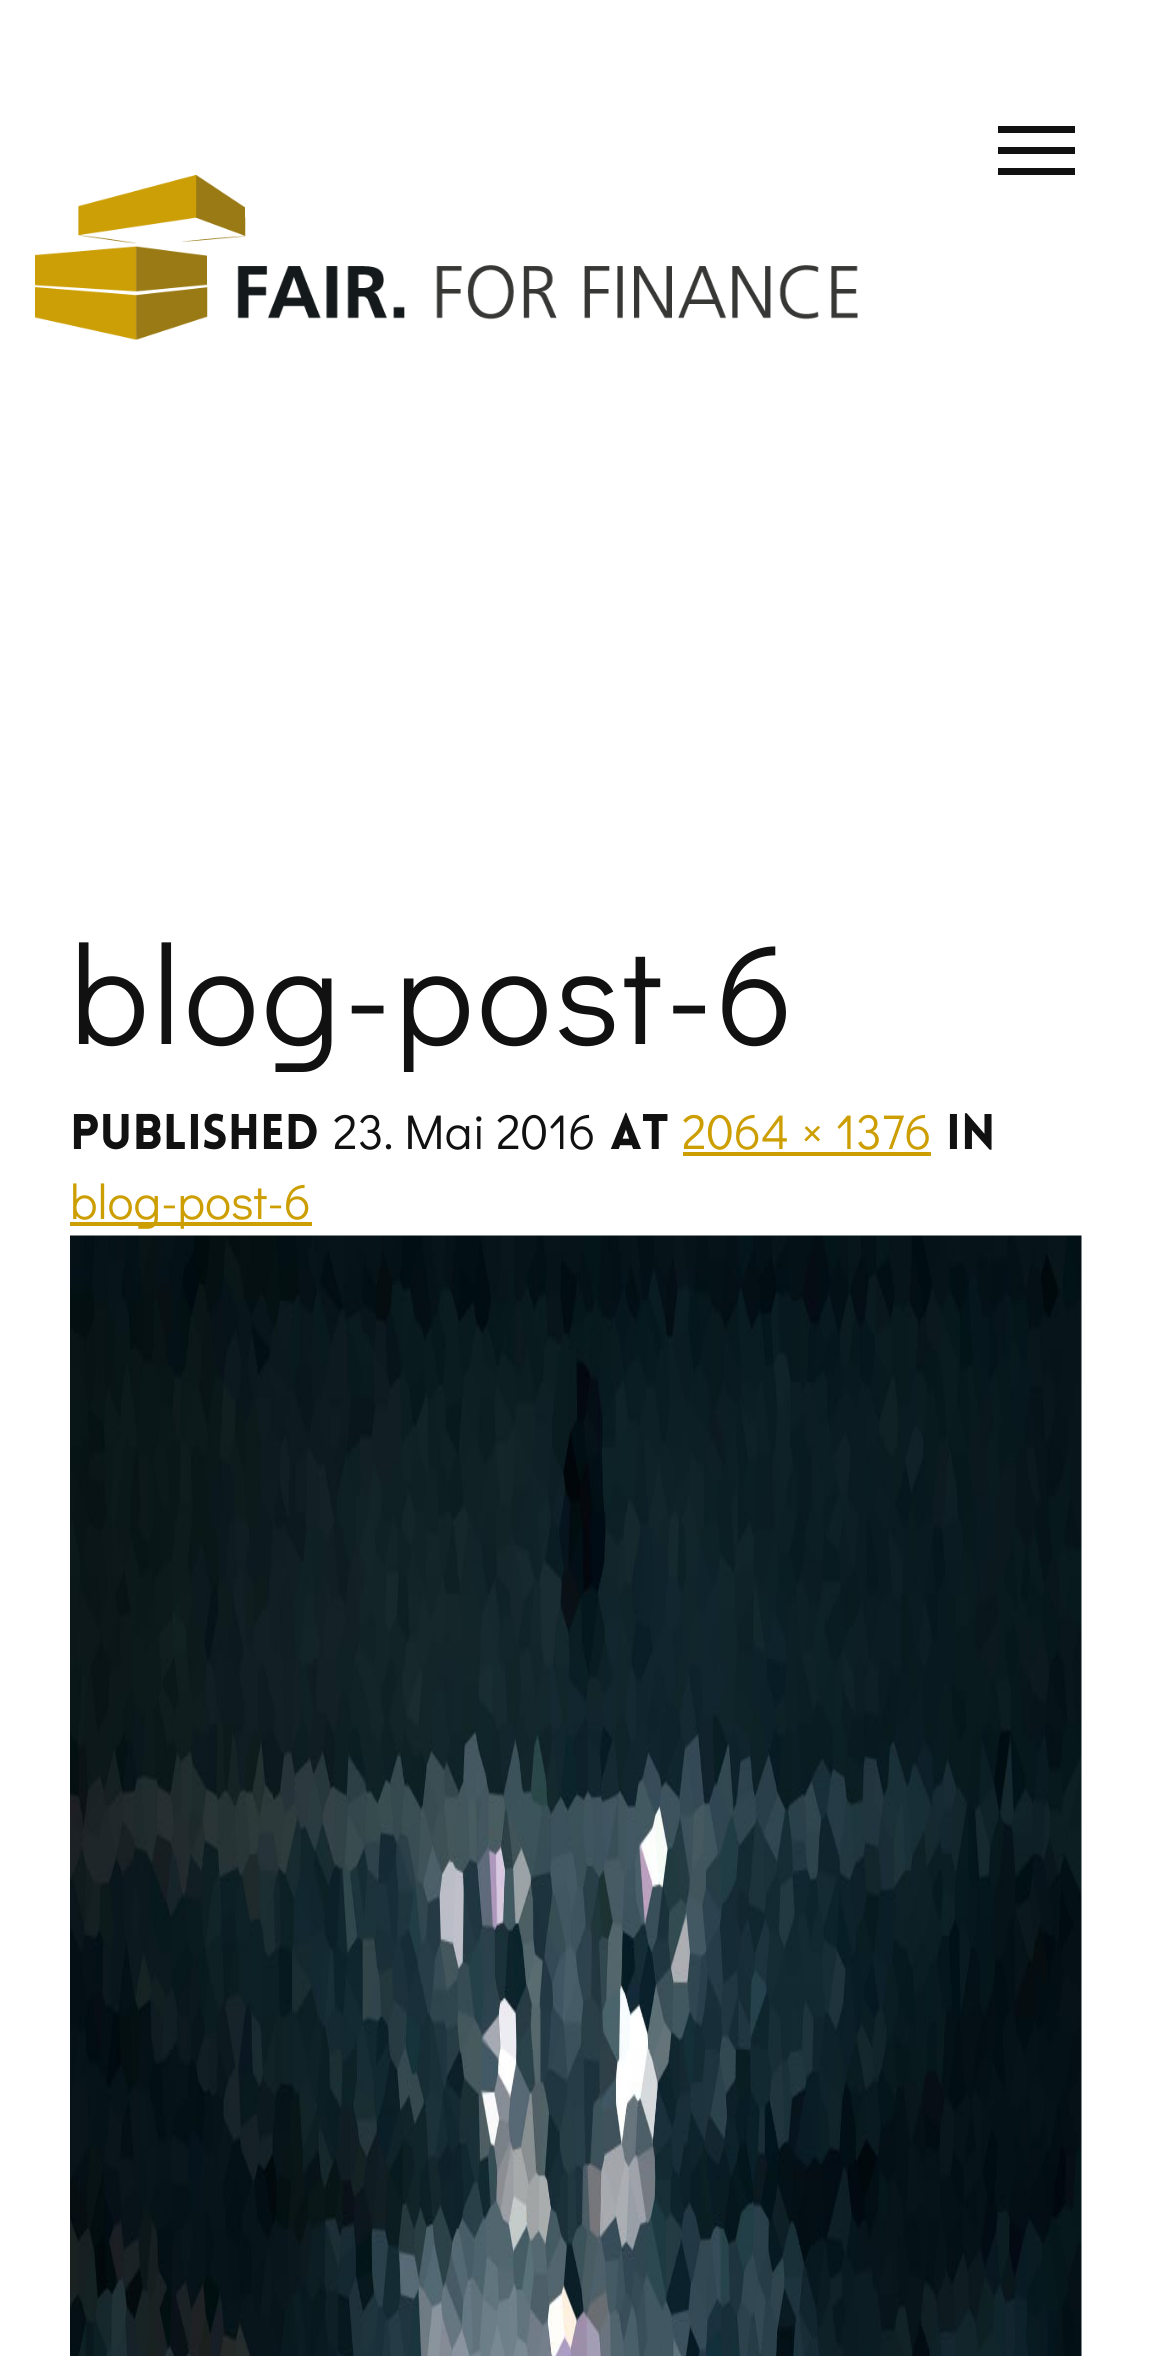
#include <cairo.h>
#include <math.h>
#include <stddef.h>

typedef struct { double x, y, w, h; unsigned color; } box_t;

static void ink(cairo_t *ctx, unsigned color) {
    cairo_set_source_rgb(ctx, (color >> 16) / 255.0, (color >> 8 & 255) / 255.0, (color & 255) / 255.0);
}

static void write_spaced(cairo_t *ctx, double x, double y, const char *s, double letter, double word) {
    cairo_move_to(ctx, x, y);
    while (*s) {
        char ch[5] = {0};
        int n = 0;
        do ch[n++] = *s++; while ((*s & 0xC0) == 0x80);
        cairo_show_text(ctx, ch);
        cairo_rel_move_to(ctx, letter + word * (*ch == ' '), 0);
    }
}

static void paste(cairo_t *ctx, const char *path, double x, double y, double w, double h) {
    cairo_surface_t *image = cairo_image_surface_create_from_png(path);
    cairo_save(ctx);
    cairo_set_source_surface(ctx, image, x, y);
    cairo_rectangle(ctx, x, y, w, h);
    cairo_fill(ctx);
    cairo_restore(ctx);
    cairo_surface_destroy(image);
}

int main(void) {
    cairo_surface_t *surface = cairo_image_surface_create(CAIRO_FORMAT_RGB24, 1149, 2356);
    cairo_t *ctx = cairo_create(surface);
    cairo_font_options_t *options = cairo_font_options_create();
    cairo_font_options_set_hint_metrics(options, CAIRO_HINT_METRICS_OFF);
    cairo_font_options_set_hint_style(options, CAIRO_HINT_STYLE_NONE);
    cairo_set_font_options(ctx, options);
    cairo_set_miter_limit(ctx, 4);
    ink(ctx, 0xFFFFFF);
    cairo_paint(ctx);
    {
        static const box_t items[] = {
            {998, 147, 77, 7, 0x111111},
            {998, 126, 77, 7, 0x111111},
            {998, 168, 77, 7, 0x111111},
        };
        for (size_t i = 0; i < sizeof items / sizeof *items; i++) {
            ink(ctx, items[i].color);
            cairo_rectangle(ctx, items[i].x, items[i].y, items[i].w, items[i].h);
            cairo_fill(ctx);
        }
    }
    paste(ctx, "media/1.png", 35, 175, 823, 165);
    cairo_select_font_face(ctx, "Didact Gothic", CAIRO_FONT_SLANT_NORMAL, CAIRO_FONT_WEIGHT_NORMAL);
    cairo_set_font_size(ctx, 140);
    write_spaced(ctx, 70, 1044, "blog-post-6", 3.5, 0);
    cairo_select_font_face(ctx, "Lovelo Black", CAIRO_FONT_SLANT_NORMAL, CAIRO_FONT_WEIGHT_NORMAL);
    cairo_set_font_size(ctx, 49);
    cairo_move_to(ctx, 70, 1149);
    cairo_show_text(ctx, "Published");
    cairo_select_font_face(ctx, "Didact Gothic", CAIRO_FONT_SLANT_NORMAL, CAIRO_FONT_WEIGHT_NORMAL);
    cairo_move_to(ctx, 333, 1149);
    cairo_show_text(ctx, "23. Mai 2016");
    cairo_select_font_face(ctx, "Lovelo Black", CAIRO_FONT_SLANT_NORMAL, CAIRO_FONT_WEIGHT_NORMAL);
    cairo_move_to(ctx, 610, 1149);
    cairo_show_text(ctx, "at");
    cairo_select_font_face(ctx, "Didact Gothic", CAIRO_FONT_SLANT_NORMAL, CAIRO_FONT_WEIGHT_NORMAL);
    ink(ctx, 0xCC9E01);
    cairo_move_to(ctx, 682, 1149);
    cairo_show_text(ctx, "2064 × 1376");
    cairo_rectangle(ctx, 683, 1152, 248, 4);
    cairo_fill(ctx);
    cairo_select_font_face(ctx, "Lovelo Black", CAIRO_FONT_SLANT_NORMAL, CAIRO_FONT_WEIGHT_NORMAL);
    ink(ctx, 0x111111);
    cairo_move_to(ctx, 946, 1149);
    cairo_show_text(ctx, "in");
    ink(ctx, 0xCC9E01);
    cairo_rectangle(ctx, 70, 1222, 242, 4);
    cairo_fill(ctx);
    cairo_select_font_face(ctx, "Didact Gothic", CAIRO_FONT_SLANT_NORMAL, CAIRO_FONT_WEIGHT_NORMAL);
    cairo_move_to(ctx, 70, 1219);
    cairo_show_text(ctx, "blog-post-6");
    paste(ctx, "media/2.png", 70, 1235, 1012, 1121);
    cairo_surface_write_to_png(surface, "image.png");
    cairo_font_options_destroy(options);
    cairo_destroy(ctx);
    cairo_surface_destroy(surface);
    return 0;
}
